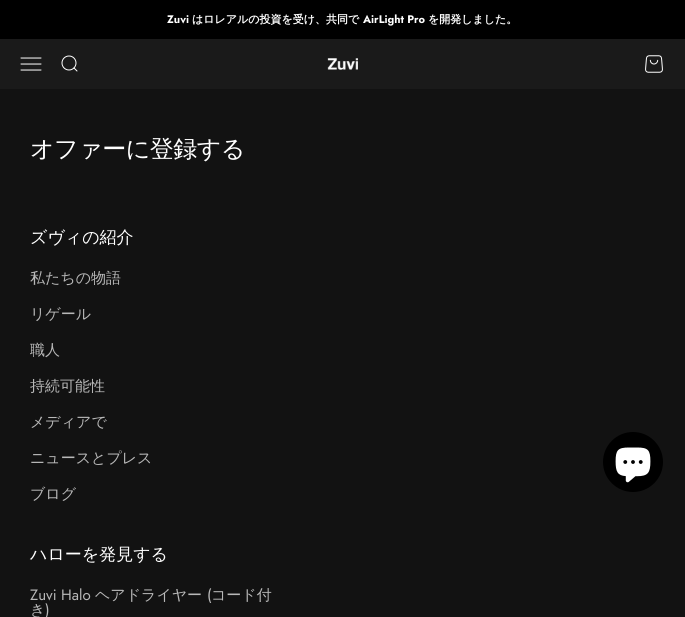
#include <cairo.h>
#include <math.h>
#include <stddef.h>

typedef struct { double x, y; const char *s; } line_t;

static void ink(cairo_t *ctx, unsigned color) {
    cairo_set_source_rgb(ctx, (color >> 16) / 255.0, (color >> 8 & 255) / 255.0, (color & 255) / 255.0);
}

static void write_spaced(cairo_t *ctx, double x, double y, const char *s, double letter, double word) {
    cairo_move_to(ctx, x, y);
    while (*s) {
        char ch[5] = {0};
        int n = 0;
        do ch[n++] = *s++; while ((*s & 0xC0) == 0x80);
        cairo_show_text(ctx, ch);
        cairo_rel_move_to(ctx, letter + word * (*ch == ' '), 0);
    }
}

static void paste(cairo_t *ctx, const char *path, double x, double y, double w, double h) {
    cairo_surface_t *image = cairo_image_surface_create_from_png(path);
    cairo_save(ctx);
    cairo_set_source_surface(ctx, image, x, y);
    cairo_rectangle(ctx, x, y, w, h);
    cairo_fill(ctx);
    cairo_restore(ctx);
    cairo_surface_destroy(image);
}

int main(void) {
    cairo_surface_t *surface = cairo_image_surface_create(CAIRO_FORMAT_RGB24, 685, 617);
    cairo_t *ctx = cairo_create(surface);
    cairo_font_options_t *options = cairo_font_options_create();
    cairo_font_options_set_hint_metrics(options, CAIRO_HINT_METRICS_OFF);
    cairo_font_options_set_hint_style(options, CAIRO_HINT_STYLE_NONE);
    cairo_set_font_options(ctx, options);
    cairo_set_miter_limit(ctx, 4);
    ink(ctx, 0x000000);
    cairo_paint(ctx);
    cairo_select_font_face(ctx, "Jost", CAIRO_FONT_SLANT_NORMAL, CAIRO_FONT_WEIGHT_BOLD);
    cairo_set_font_size(ctx, 11);
    ink(ctx, 0xFFFFFF);
    cairo_move_to(ctx, 167, 23);
    cairo_show_text(ctx, "Zuvi");
    cairo_select_font_face(ctx, "WenQuanYi Zen Hei", CAIRO_FONT_SLANT_NORMAL, CAIRO_FONT_WEIGHT_BOLD);
    cairo_move_to(ctx, 192, 23);
    cairo_show_text(ctx, "はロレアルの投資を受け、共同で");
    cairo_select_font_face(ctx, "Jost", CAIRO_FONT_SLANT_NORMAL, CAIRO_FONT_WEIGHT_BOLD);
    cairo_move_to(ctx, 363, 23);
    cairo_show_text(ctx, "AirLight Pro");
    cairo_select_font_face(ctx, "WenQuanYi Zen Hei", CAIRO_FONT_SLANT_NORMAL, CAIRO_FONT_WEIGHT_BOLD);
    cairo_move_to(ctx, 428, 23);
    cairo_show_text(ctx, "を開発しました。");
    ink(ctx, 0x1A1A1A);
    cairo_rectangle(ctx, 0, 39, 685, 50);
    cairo_fill(ctx);
    paste(ctx, "media/1.png", 20, 57, 22, 14);
    paste(ctx, "media/2.png", 61, 55, 17, 17);
    paste(ctx, "media/3.png", 327, 58, 31, 12);
    paste(ctx, "media/4.png", 645, 55, 18, 18);
    ink(ctx, 0x121212);
    cairo_rectangle(ctx, 0, 89, 685, 528);
    cairo_fill(ctx);
    cairo_select_font_face(ctx, "WenQuanYi Zen Hei Medium", CAIRO_FONT_SLANT_NORMAL, CAIRO_FONT_WEIGHT_NORMAL);
    cairo_set_font_size(ctx, 24);
    ink(ctx, 0xFFFFFF);
    write_spaced(ctx, 30, 157, "オファーに登録する", -0.5, 0);
    cairo_set_font_size(ctx, 17);
    cairo_move_to(ctx, 30, 243);
    cairo_show_text(ctx, "ズヴィの紹介");
    cairo_set_font_size(ctx, 15);
    ink(ctx, 0xB8B8B8);
    {
        static const line_t items[] = {
            {30, 283, "私たちの物語"},
            {30, 319, "リゲール"},
            {30, 355, "職人"},
            {30, 391, "持続可能性"},
            {30, 427, "メディアで"},
            {30, 463, "ニュースとプレス"},
            {30, 499, "ブログ"},
        };
        for (size_t i = 0; i < sizeof items / sizeof *items; i++) {
            cairo_move_to(ctx, items[i].x, items[i].y);
            cairo_show_text(ctx, items[i].s);
        }
    }
    cairo_set_font_size(ctx, 17);
    ink(ctx, 0xFFFFFF);
    cairo_move_to(ctx, 30, 560);
    cairo_show_text(ctx, "ハローを発見する");
    cairo_select_font_face(ctx, "Jost", CAIRO_FONT_SLANT_NORMAL, CAIRO_FONT_WEIGHT_NORMAL);
    cairo_set_font_size(ctx, 15);
    ink(ctx, 0xB8B8B8);
    cairo_move_to(ctx, 30, 600);
    cairo_show_text(ctx, "Zuvi Halo");
    cairo_select_font_face(ctx, "WenQuanYi Zen Hei Medium", CAIRO_FONT_SLANT_NORMAL, CAIRO_FONT_WEIGHT_NORMAL);
    cairo_move_to(ctx, 95, 600);
    cairo_show_text(ctx, "ヘアドライヤー");
    cairo_select_font_face(ctx, "Jost", CAIRO_FONT_SLANT_NORMAL, CAIRO_FONT_WEIGHT_NORMAL);
    cairo_move_to(ctx, 207, 600);
    cairo_show_text(ctx, "(");
    cairo_select_font_face(ctx, "WenQuanYi Zen Hei Medium", CAIRO_FONT_SLANT_NORMAL, CAIRO_FONT_WEIGHT_NORMAL);
    cairo_move_to(ctx, 211, 600);
    cairo_show_text(ctx, "コード付");
    cairo_move_to(ctx, 30, 615);
    cairo_show_text(ctx, "き");
    cairo_select_font_face(ctx, "Jost", CAIRO_FONT_SLANT_NORMAL, CAIRO_FONT_WEIGHT_NORMAL);
    cairo_move_to(ctx, 45, 615);
    cairo_show_text(ctx, ")");
    ink(ctx, 0x000000);
    cairo_new_path(ctx);
    cairo_arc(ctx, 633, 462, 30, 0, 2 * M_PI);
    cairo_fill(ctx);
    paste(ctx, "media/5.png", 615, 447, 36, 36);
    cairo_surface_write_to_png(surface, "image.png");
    cairo_font_options_destroy(options);
    cairo_destroy(ctx);
    cairo_surface_destroy(surface);
    return 0;
}
